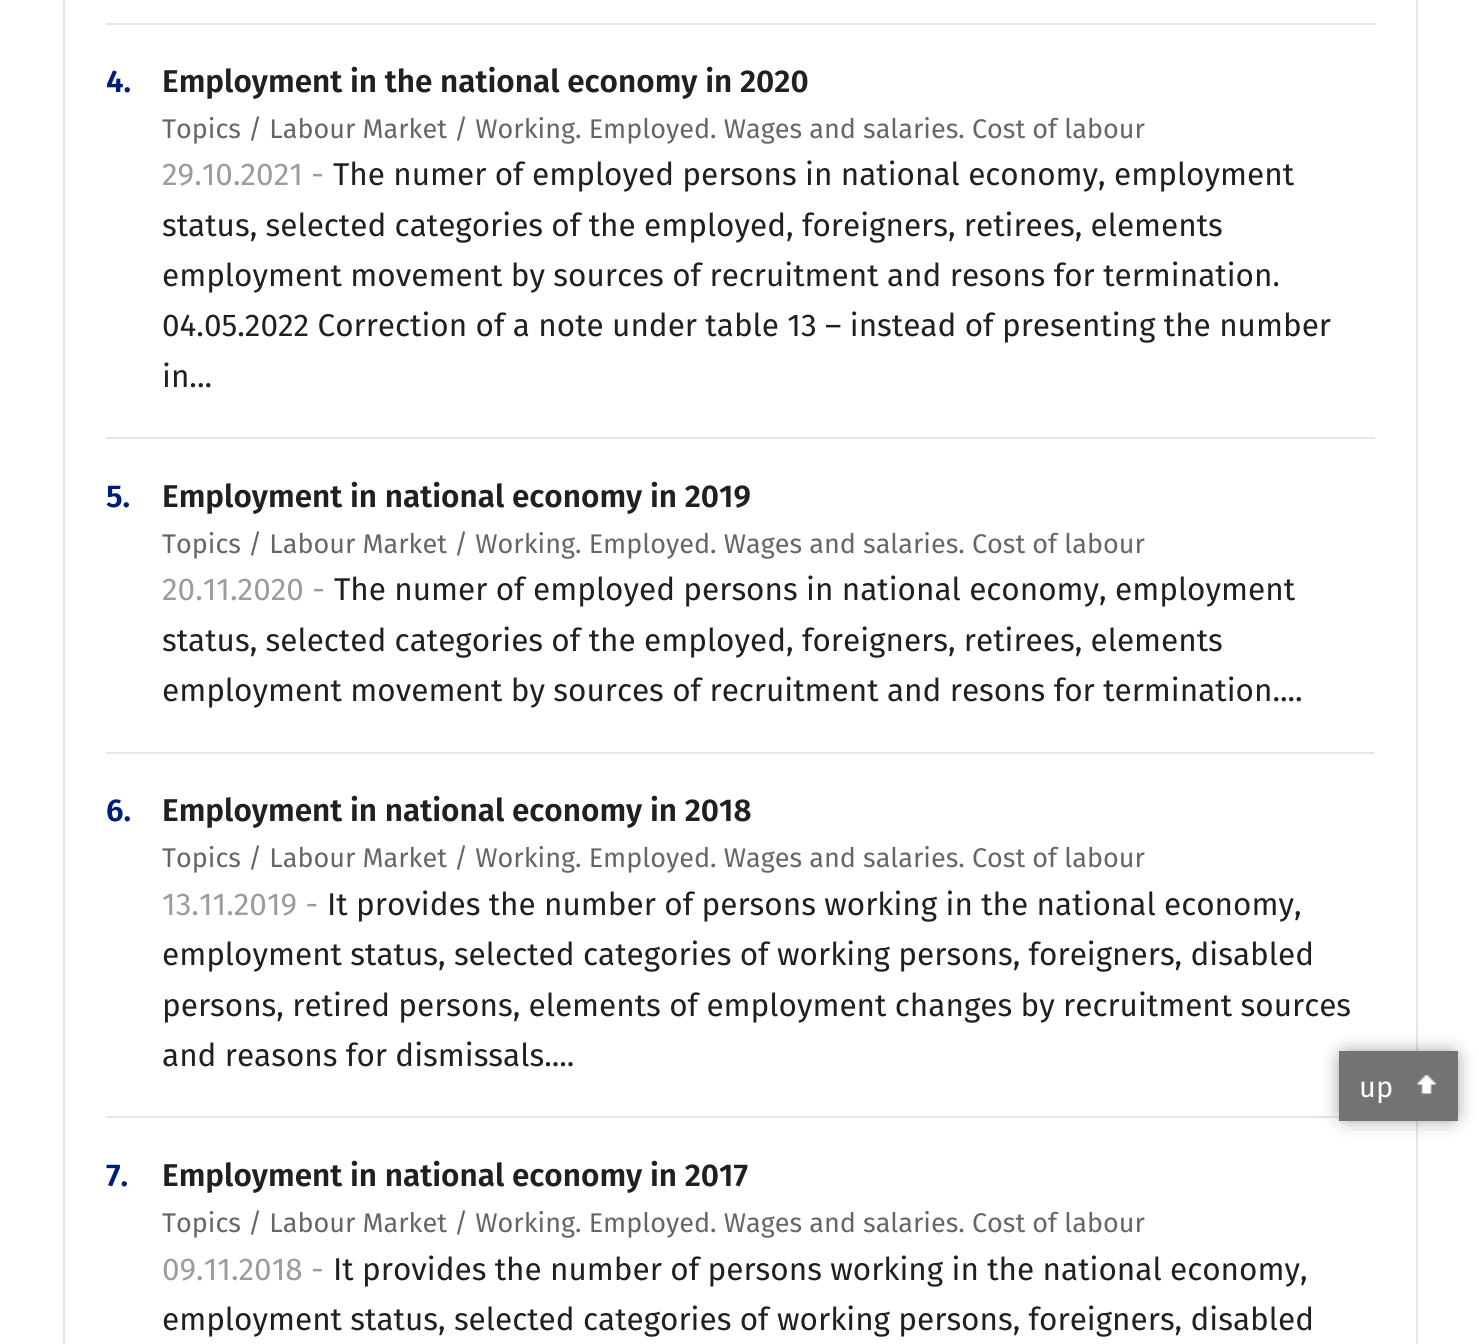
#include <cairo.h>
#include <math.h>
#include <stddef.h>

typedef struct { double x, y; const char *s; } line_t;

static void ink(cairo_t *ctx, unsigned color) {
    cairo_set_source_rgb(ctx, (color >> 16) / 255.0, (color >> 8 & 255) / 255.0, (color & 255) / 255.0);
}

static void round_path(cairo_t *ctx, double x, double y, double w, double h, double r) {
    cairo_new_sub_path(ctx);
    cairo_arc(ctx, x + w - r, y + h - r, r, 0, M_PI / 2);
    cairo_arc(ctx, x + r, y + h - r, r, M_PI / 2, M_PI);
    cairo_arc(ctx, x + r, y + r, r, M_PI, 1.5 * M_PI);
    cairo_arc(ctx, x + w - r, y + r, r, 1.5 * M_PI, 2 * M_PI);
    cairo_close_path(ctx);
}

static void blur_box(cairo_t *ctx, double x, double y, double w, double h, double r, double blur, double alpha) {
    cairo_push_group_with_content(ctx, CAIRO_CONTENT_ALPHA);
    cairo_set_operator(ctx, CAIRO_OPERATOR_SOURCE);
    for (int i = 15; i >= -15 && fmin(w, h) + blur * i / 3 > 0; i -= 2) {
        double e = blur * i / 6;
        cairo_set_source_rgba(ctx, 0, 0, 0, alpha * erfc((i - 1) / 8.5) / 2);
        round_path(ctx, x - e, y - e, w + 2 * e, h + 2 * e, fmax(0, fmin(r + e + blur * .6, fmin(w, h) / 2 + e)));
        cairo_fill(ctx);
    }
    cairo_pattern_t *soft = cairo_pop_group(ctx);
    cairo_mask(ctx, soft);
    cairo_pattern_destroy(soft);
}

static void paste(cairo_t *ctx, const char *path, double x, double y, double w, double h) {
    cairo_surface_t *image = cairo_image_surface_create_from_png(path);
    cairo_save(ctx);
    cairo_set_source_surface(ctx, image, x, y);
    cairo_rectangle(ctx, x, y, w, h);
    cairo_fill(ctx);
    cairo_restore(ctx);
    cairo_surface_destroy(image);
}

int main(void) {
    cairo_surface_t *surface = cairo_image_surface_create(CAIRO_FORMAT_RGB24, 1479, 1344);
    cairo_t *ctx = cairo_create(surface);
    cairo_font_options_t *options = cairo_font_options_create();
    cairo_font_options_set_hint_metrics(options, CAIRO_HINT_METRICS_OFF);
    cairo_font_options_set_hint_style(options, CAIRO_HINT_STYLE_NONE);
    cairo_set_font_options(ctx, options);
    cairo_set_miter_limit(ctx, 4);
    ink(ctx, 0xFFFFFF);
    cairo_paint(ctx);
    cairo_rectangle(ctx, 64, -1, 1353, 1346);
    ink(ctx, 0xE5E5E5);
    cairo_stroke(ctx);
    cairo_rectangle(ctx, 106, 23, 1269, 2);
    cairo_fill(ctx);
    cairo_rectangle(ctx, 106, 437, 1269, 2);
    cairo_fill(ctx);
    cairo_select_font_face(ctx, "Fira Sans SemiBold", CAIRO_FONT_SLANT_NORMAL, CAIRO_FONT_WEIGHT_NORMAL);
    cairo_set_font_size(ctx, 31.5);
    ink(ctx, 0x001D77);
    cairo_move_to(ctx, 106, 92);
    cairo_show_text(ctx, "4.");
    ink(ctx, 0x202020);
    cairo_move_to(ctx, 162, 92);
    cairo_show_text(ctx, "Employment in the national economy in 2020");
    cairo_select_font_face(ctx, "Fira Sans", CAIRO_FONT_SLANT_NORMAL, CAIRO_FONT_WEIGHT_NORMAL);
    cairo_set_font_size(ctx, 27);
    ink(ctx, 0x666666);
    cairo_move_to(ctx, 162, 138);
    cairo_show_text(ctx, "Topics / Labour Market / Working. Employed. Wages and salaries. Cost of labour");
    cairo_set_font_size(ctx, 31.5);
    ink(ctx, 0x9C9C9C);
    cairo_move_to(ctx, 162, 185);
    cairo_show_text(ctx, "29.10.2021 -");
    ink(ctx, 0x202020);
    {
        static const line_t items[] = {
            {333, 185, "The numer of employed persons in national economy, employment"},
            {162, 236, "status, selected categories of the employed, foreigners, retirees, elements"},
            {162, 286, "employment movement by sources of recruitment and resons for termination."},
            {162, 336, "04.05.2022 Correction of a note under table 13 – instead of presenting the number"},
            {162, 387, "in..."},
        };
        for (size_t i = 0; i < sizeof items / sizeof *items; i++) {
            cairo_move_to(ctx, items[i].x, items[i].y);
            cairo_show_text(ctx, items[i].s);
        }
    }
    ink(ctx, 0xE5E5E5);
    cairo_rectangle(ctx, 106, 752, 1269, 2);
    cairo_fill(ctx);
    cairo_select_font_face(ctx, "Fira Sans SemiBold", CAIRO_FONT_SLANT_NORMAL, CAIRO_FONT_WEIGHT_NORMAL);
    ink(ctx, 0x001D77);
    cairo_move_to(ctx, 106, 507);
    cairo_show_text(ctx, "5.");
    ink(ctx, 0x202020);
    cairo_move_to(ctx, 162, 507);
    cairo_show_text(ctx, "Employment in national economy in 2019");
    cairo_select_font_face(ctx, "Fira Sans", CAIRO_FONT_SLANT_NORMAL, CAIRO_FONT_WEIGHT_NORMAL);
    cairo_set_font_size(ctx, 27);
    ink(ctx, 0x666666);
    cairo_move_to(ctx, 162, 553);
    cairo_show_text(ctx, "Topics / Labour Market / Working. Employed. Wages and salaries. Cost of labour");
    cairo_set_font_size(ctx, 31.5);
    ink(ctx, 0x9C9C9C);
    cairo_move_to(ctx, 162, 600);
    cairo_show_text(ctx, "20.11.2020 -");
    ink(ctx, 0x202020);
    {
        static const line_t items[] = {
            {334, 600, "The numer of employed persons in national economy, employment"},
            {162, 651, "status, selected categories of the employed, foreigners, retirees, elements"},
            {162, 701, "employment movement by sources of recruitment and resons for termination...."},
        };
        for (size_t i = 0; i < sizeof items / sizeof *items; i++) {
            cairo_move_to(ctx, items[i].x, items[i].y);
            cairo_show_text(ctx, items[i].s);
        }
    }
    ink(ctx, 0xE5E5E5);
    cairo_rectangle(ctx, 106, 1116, 1233, 2);
    cairo_fill(ctx);
    cairo_select_font_face(ctx, "Fira Sans SemiBold", CAIRO_FONT_SLANT_NORMAL, CAIRO_FONT_WEIGHT_NORMAL);
    ink(ctx, 0x001D77);
    cairo_move_to(ctx, 106, 821);
    cairo_show_text(ctx, "6.");
    ink(ctx, 0x202020);
    cairo_move_to(ctx, 162, 821);
    cairo_show_text(ctx, "Employment in national economy in 2018");
    cairo_select_font_face(ctx, "Fira Sans", CAIRO_FONT_SLANT_NORMAL, CAIRO_FONT_WEIGHT_NORMAL);
    cairo_set_font_size(ctx, 27);
    ink(ctx, 0x666666);
    cairo_move_to(ctx, 162, 867);
    cairo_show_text(ctx, "Topics / Labour Market / Working. Employed. Wages and salaries. Cost of labour");
    cairo_set_font_size(ctx, 31.5);
    ink(ctx, 0x9C9C9C);
    cairo_move_to(ctx, 162, 915);
    cairo_show_text(ctx, "13.11.2019 -");
    ink(ctx, 0x202020);
    {
        static const line_t items[] = {
            {327, 915, "It provides the number of persons working in the national economy,"},
            {162, 965, "employment status, selected categories of working persons, foreigners, disabled"},
            {162, 1016, "persons, retired persons, elements of employment changes by recruitment sources"},
            {162, 1066, "and reasons for dismissals...."},
        };
        for (size_t i = 0; i < sizeof items / sizeof *items; i++) {
            cairo_move_to(ctx, items[i].x, items[i].y);
            cairo_show_text(ctx, items[i].s);
        }
    }
    cairo_select_font_face(ctx, "Fira Sans SemiBold", CAIRO_FONT_SLANT_NORMAL, CAIRO_FONT_WEIGHT_NORMAL);
    ink(ctx, 0x001D77);
    cairo_move_to(ctx, 106, 1186);
    cairo_show_text(ctx, "7.");
    ink(ctx, 0x202020);
    cairo_move_to(ctx, 162, 1186);
    cairo_show_text(ctx, "Employment in national economy in 2017");
    cairo_select_font_face(ctx, "Fira Sans", CAIRO_FONT_SLANT_NORMAL, CAIRO_FONT_WEIGHT_NORMAL);
    cairo_set_font_size(ctx, 27);
    ink(ctx, 0x666666);
    cairo_move_to(ctx, 162, 1232);
    cairo_show_text(ctx, "Topics / Labour Market / Working. Employed. Wages and salaries. Cost of labour");
    cairo_set_font_size(ctx, 31.5);
    ink(ctx, 0x9C9C9C);
    cairo_move_to(ctx, 162, 1280);
    cairo_show_text(ctx, "09.11.2018 -");
    ink(ctx, 0x202020);
    cairo_move_to(ctx, 333, 1280);
    cairo_show_text(ctx, "It provides the number of persons working in the national economy,");
    cairo_move_to(ctx, 162, 1330);
    cairo_show_text(ctx, "employment status, selected categories of working persons, foreigners, disabled");
    ink(ctx, 0x000000);
    blur_box(ctx, 1346, 1058, 105, 56, 0, 11, 0.7);
    ink(ctx, 0x737373);
    cairo_rectangle(ctx, 1339, 1051, 119, 70);
    cairo_fill(ctx);
    cairo_set_font_size(ctx, 29);
    ink(ctx, 0xFFFFFF);
    cairo_move_to(ctx, 1359, 1097);
    cairo_show_text(ctx, "up");
    paste(ctx, "media/1.png", 1417, 1075, 20, 20);
    cairo_surface_write_to_png(surface, "image.png");
    cairo_font_options_destroy(options);
    cairo_destroy(ctx);
    cairo_surface_destroy(surface);
    return 0;
}
